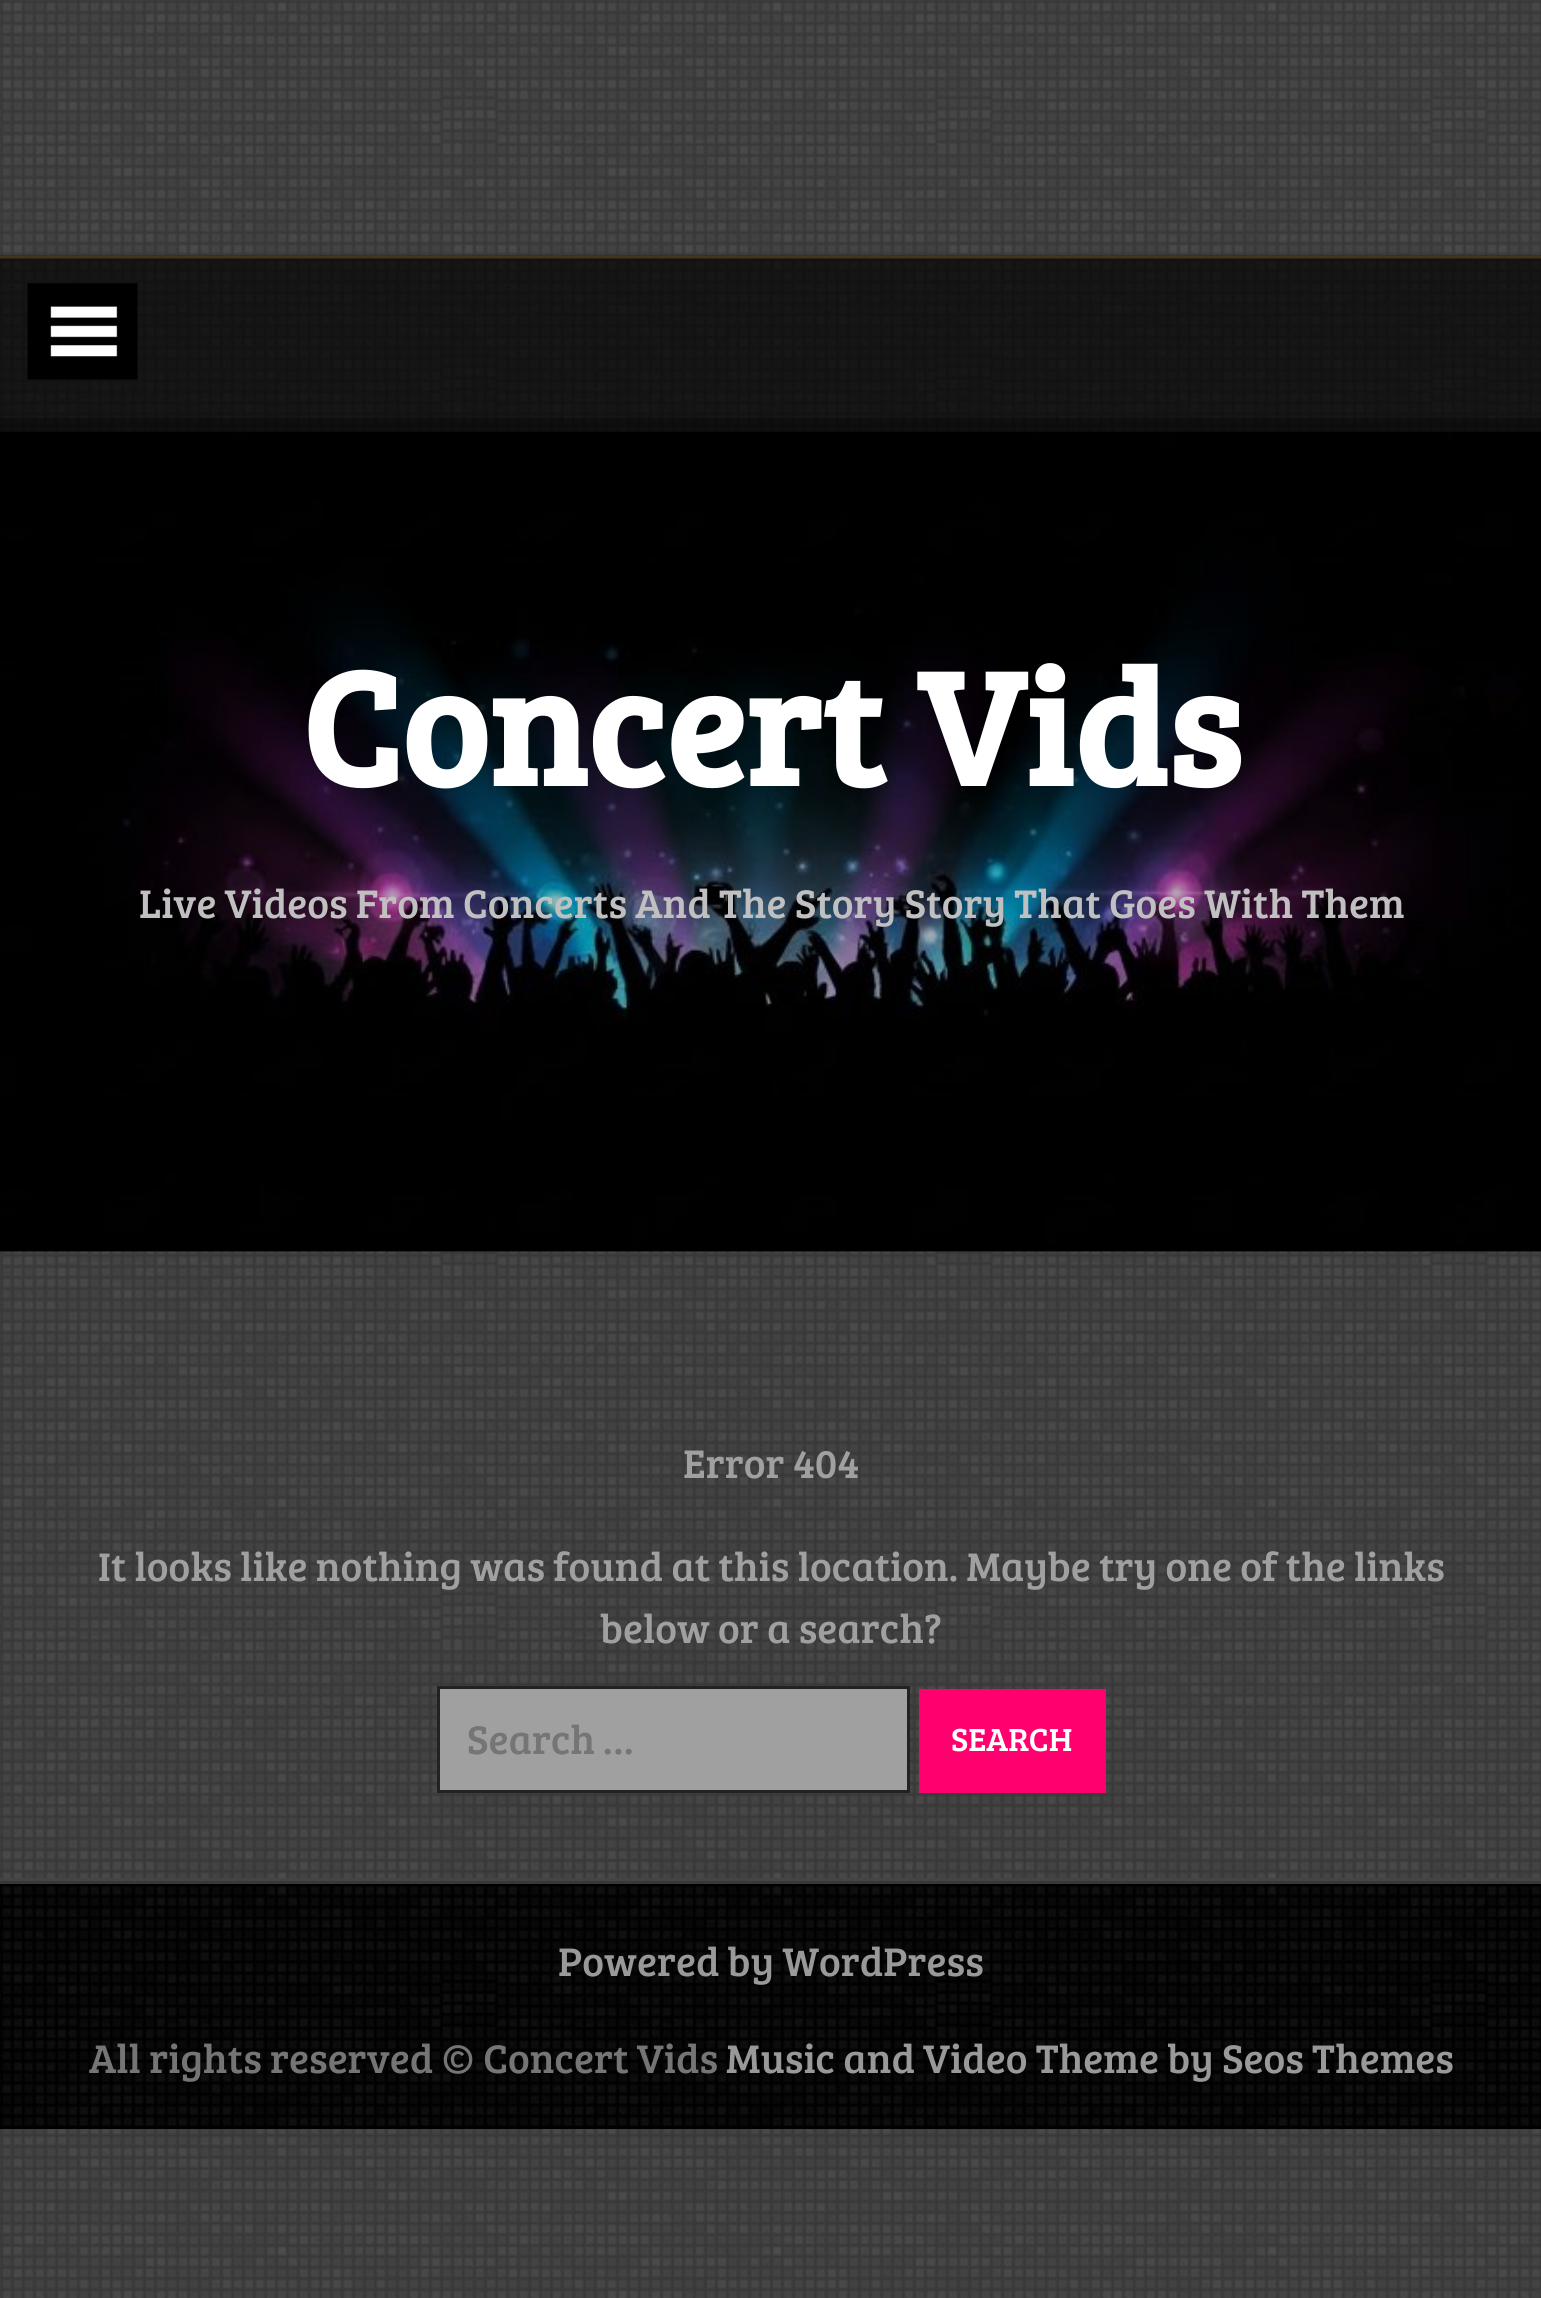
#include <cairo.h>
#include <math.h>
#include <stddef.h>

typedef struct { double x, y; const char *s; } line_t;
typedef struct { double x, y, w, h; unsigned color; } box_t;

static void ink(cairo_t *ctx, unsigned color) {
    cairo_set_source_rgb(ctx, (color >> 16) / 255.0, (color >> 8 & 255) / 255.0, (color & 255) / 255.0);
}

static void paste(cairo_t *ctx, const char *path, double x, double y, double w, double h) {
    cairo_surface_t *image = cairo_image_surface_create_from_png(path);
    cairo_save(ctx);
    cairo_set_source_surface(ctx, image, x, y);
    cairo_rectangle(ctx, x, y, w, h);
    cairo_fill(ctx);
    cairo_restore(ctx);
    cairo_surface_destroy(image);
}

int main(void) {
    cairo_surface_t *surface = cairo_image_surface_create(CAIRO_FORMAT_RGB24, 1541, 2298);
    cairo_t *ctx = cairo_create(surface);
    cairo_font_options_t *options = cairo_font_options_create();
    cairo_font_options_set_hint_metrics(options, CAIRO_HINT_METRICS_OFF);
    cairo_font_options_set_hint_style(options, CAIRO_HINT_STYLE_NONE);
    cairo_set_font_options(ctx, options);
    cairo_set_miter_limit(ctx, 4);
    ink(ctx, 0xFFFFFF);
    cairo_paint(ctx);
    paste(ctx, "media/1.png", 0, 0, 1541, 2298);
    paste(ctx, "media/2.png", 0, 255, 1541, 997);
    ink(ctx, 0x44341B);
    cairo_rectangle(ctx, 0, 256, 1541, 3);
    cairo_fill(ctx);
    paste(ctx, "media/3.png", 0, 258, 1541, 160);
    paste(ctx, "media/4.png", 27, 283, 111, 97);
    paste(ctx, "media/5.png", 0, 431, 1541, 821);
    cairo_set_source_rgba(ctx, 0, 0, 0, 0.3);
    cairo_rectangle(ctx, 0, 418, 1541, 600);
    cairo_fill(ctx);
    cairo_select_font_face(ctx, "Bree Serif", CAIRO_FONT_SLANT_NORMAL, CAIRO_FONT_WEIGHT_BOLD);
    cairo_set_font_size(ctx, 165);
    ink(ctx, 0xFFFFFF);
    cairo_move_to(ctx, 302, 786);
    cairo_show_text(ctx, "Concert Vids");
    cairo_select_font_face(ctx, "Bree Serif", CAIRO_FONT_SLANT_NORMAL, CAIRO_FONT_WEIGHT_NORMAL);
    cairo_set_font_size(ctx, 41.25);
    ink(ctx, 0xC0C0C0);
    cairo_move_to(ctx, 139, 918);
    cairo_show_text(ctx, "Live Videos From Concerts And The Story Story That Goes With Them");
    ink(ctx, 0xA0A0A0);
    {
        static const line_t items[] = {
            {683, 1478, "Error 404"},
            {98, 1581, "It looks like nothing was found at this location. Maybe try one of the links"},
            {600, 1643, "below or a search?"},
        };
        for (size_t i = 0; i < sizeof items / sizeof *items; i++) {
            cairo_move_to(ctx, items[i].x, items[i].y);
            cairo_show_text(ctx, items[i].s);
        }
    }
    cairo_rectangle(ctx, 438.5, 1687.5, 470, 104);
    cairo_fill_preserve(ctx);
    ink(ctx, 0x222222);
    cairo_set_line_width(ctx, 3);
    cairo_stroke(ctx);
    ink(ctx, 0x757575);
    cairo_move_to(ctx, 467, 1754);
    cairo_show_text(ctx, "Search …");
    ink(ctx, 0xFF006E);
    cairo_rectangle(ctx, 919, 1689, 187, 104);
    cairo_fill(ctx);
    cairo_set_font_size(ctx, 33);
    ink(ctx, 0xFFFFFF);
    cairo_move_to(ctx, 951, 1751);
    cairo_show_text(ctx, "SEARCH");
    {
        static const box_t items[] = {
            {0, 1878, 1541, 3, 0x444444},
            {0, 1881, 1541, 3, 0x383838},
            {0, 2126, 1541, 3, 0x000000},
        };
        for (size_t i = 0; i < sizeof items / sizeof *items; i++) {
            ink(ctx, items[i].color);
            cairo_rectangle(ctx, items[i].x, items[i].y, items[i].w, items[i].h);
            cairo_fill(ctx);
        }
    }
    paste(ctx, "media/6.png", 0, 1884, 1541, 242);
    cairo_set_font_size(ctx, 41.25);
    ink(ctx, 0x999999);
    cairo_move_to(ctx, 558, 1976);
    cairo_show_text(ctx, "Powered by WordPress");
    ink(ctx, 0x757575);
    cairo_move_to(ctx, 89, 2073);
    cairo_show_text(ctx, "All rights reserved © Concert Vids");
    ink(ctx, 0x999999);
    cairo_move_to(ctx, 726, 2073);
    cairo_show_text(ctx, "Music and Video Theme by Seos Themes");
    cairo_surface_write_to_png(surface, "image.png");
    cairo_font_options_destroy(options);
    cairo_destroy(ctx);
    cairo_surface_destroy(surface);
    return 0;
}
